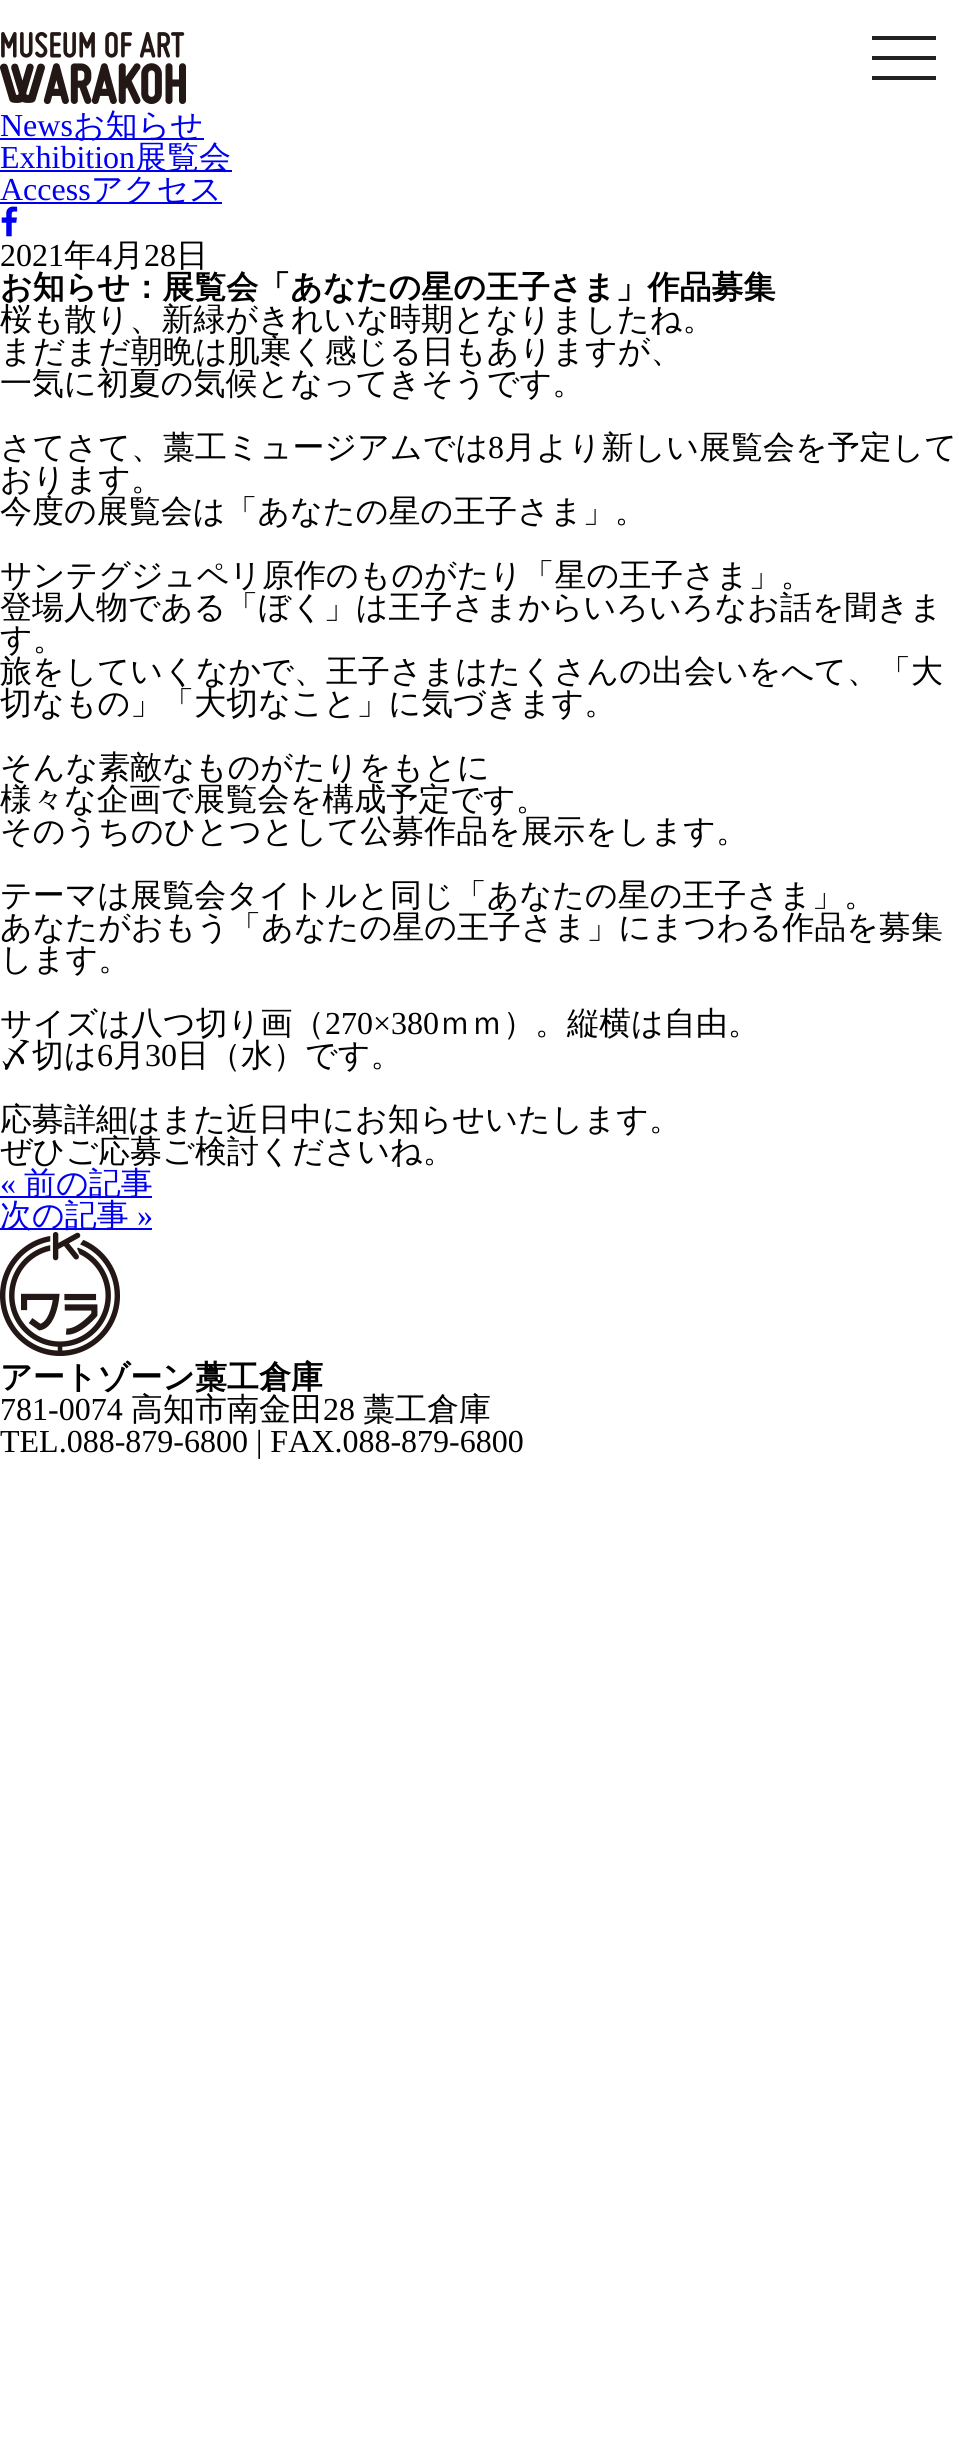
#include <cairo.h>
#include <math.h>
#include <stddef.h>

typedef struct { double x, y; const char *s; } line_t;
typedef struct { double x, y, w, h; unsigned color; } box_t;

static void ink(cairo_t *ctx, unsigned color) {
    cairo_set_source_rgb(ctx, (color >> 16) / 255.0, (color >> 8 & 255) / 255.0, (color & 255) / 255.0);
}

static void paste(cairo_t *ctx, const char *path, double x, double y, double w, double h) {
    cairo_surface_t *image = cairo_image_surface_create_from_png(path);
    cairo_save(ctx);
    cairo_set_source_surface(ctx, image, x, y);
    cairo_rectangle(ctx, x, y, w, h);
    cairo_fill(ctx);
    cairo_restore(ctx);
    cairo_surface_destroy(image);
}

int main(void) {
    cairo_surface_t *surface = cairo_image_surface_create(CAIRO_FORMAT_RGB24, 959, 2459);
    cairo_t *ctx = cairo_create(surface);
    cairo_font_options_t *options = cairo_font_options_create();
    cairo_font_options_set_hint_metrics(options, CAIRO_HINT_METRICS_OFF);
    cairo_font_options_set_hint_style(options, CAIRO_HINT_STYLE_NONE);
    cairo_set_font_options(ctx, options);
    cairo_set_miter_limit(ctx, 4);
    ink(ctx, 0xFFFFFF);
    cairo_paint(ctx);
    {
        static const box_t items[] = {
            {872, 56, 64, 4, 0x222222},
            {872, 36, 64, 4, 0x222222},
            {872, 76, 64, 4, 0x222222},
        };
        for (size_t i = 0; i < sizeof items / sizeof *items; i++) {
            ink(ctx, items[i].color);
            cairo_rectangle(ctx, items[i].x, items[i].y, items[i].w, items[i].h);
            cairo_fill(ctx);
        }
    }
    paste(ctx, "media/1.png", 0, 32, 186, 72);
    cairo_select_font_face(ctx, "Liberation Serif", CAIRO_FONT_SLANT_NORMAL, CAIRO_FONT_WEIGHT_NORMAL);
    cairo_set_font_size(ctx, 32);
    ink(ctx, 0x0000EE);
    cairo_move_to(ctx, 0, 136);
    cairo_show_text(ctx, "News");
    cairo_rectangle(ctx, 0, 138, 204, 2);
    cairo_fill(ctx);
    cairo_select_font_face(ctx, "WenQuanYi Zen Hei Medium", CAIRO_FONT_SLANT_NORMAL, CAIRO_FONT_WEIGHT_NORMAL);
    cairo_move_to(ctx, 73, 136);
    cairo_show_text(ctx, "お知らせ");
    cairo_select_font_face(ctx, "Liberation Serif", CAIRO_FONT_SLANT_NORMAL, CAIRO_FONT_WEIGHT_NORMAL);
    cairo_move_to(ctx, 0, 168);
    cairo_show_text(ctx, "Exhibition");
    cairo_rectangle(ctx, 0, 170, 232, 2);
    cairo_fill(ctx);
    cairo_select_font_face(ctx, "WenQuanYi Zen Hei Medium", CAIRO_FONT_SLANT_NORMAL, CAIRO_FONT_WEIGHT_NORMAL);
    cairo_move_to(ctx, 135, 168);
    cairo_show_text(ctx, "展覧会");
    cairo_select_font_face(ctx, "Liberation Serif", CAIRO_FONT_SLANT_NORMAL, CAIRO_FONT_WEIGHT_NORMAL);
    cairo_move_to(ctx, 0, 200);
    cairo_show_text(ctx, "Access");
    cairo_rectangle(ctx, 0, 202, 222, 2);
    cairo_fill(ctx);
    cairo_select_font_face(ctx, "WenQuanYi Zen Hei Medium", CAIRO_FONT_SLANT_NORMAL, CAIRO_FONT_WEIGHT_NORMAL);
    cairo_move_to(ctx, 91, 200);
    cairo_show_text(ctx, "アクセス");
    paste(ctx, "media/2.png", 1, 206, 17, 31);
    cairo_select_font_face(ctx, "Liberation Serif", CAIRO_FONT_SLANT_NORMAL, CAIRO_FONT_WEIGHT_NORMAL);
    ink(ctx, 0x000000);
    cairo_move_to(ctx, 0, 266);
    cairo_show_text(ctx, "2021");
    cairo_select_font_face(ctx, "WenQuanYi Zen Hei Medium", CAIRO_FONT_SLANT_NORMAL, CAIRO_FONT_WEIGHT_NORMAL);
    cairo_move_to(ctx, 64, 266);
    cairo_show_text(ctx, "年");
    cairo_select_font_face(ctx, "Liberation Serif", CAIRO_FONT_SLANT_NORMAL, CAIRO_FONT_WEIGHT_NORMAL);
    cairo_move_to(ctx, 96, 266);
    cairo_show_text(ctx, "4");
    cairo_select_font_face(ctx, "WenQuanYi Zen Hei Medium", CAIRO_FONT_SLANT_NORMAL, CAIRO_FONT_WEIGHT_NORMAL);
    cairo_move_to(ctx, 112, 266);
    cairo_show_text(ctx, "月");
    cairo_select_font_face(ctx, "Liberation Serif", CAIRO_FONT_SLANT_NORMAL, CAIRO_FONT_WEIGHT_NORMAL);
    cairo_move_to(ctx, 144, 266);
    cairo_show_text(ctx, "28");
    cairo_select_font_face(ctx, "WenQuanYi Zen Hei Medium", CAIRO_FONT_SLANT_NORMAL, CAIRO_FONT_WEIGHT_NORMAL);
    cairo_move_to(ctx, 176, 266);
    cairo_show_text(ctx, "日");
    cairo_select_font_face(ctx, "WenQuanYi Zen Hei", CAIRO_FONT_SLANT_NORMAL, CAIRO_FONT_WEIGHT_BOLD);
    cairo_move_to(ctx, 0, 298);
    cairo_show_text(ctx, "お知らせ：展覧会「あなたの星の王子さま」作品募集");
    cairo_select_font_face(ctx, "WenQuanYi Zen Hei Medium", CAIRO_FONT_SLANT_NORMAL, CAIRO_FONT_WEIGHT_NORMAL);
    {
        static const line_t items[] = {
            {0, 330, "桜も散り、新緑がきれいな時期となりましたね。"},
            {0, 362, "まだまだ朝晩は肌寒く感じる日もありますが、"},
            {0, 394, "一気に初夏の気候となってきそうです。"},
            {0, 458, "さてさて、藁工ミュージアムでは"},
        };
        for (size_t i = 0; i < sizeof items / sizeof *items; i++) {
            cairo_move_to(ctx, items[i].x, items[i].y);
            cairo_show_text(ctx, items[i].s);
        }
    }
    cairo_select_font_face(ctx, "Liberation Serif", CAIRO_FONT_SLANT_NORMAL, CAIRO_FONT_WEIGHT_NORMAL);
    cairo_move_to(ctx, 488, 458);
    cairo_show_text(ctx, "8");
    cairo_select_font_face(ctx, "WenQuanYi Zen Hei Medium", CAIRO_FONT_SLANT_NORMAL, CAIRO_FONT_WEIGHT_NORMAL);
    {
        static const line_t items[] = {
            {504, 458, "月より新しい展覧会を予定して"},
            {0, 490, "おります。"},
            {0, 522, "今度の展覧会は「あなたの星の王子さま」。"},
            {0, 586, "サンテグジュペリ原作のものがたり「星の王子さま」。"},
            {0, 618, "登場人物である「ぼく」は王子さまからいろいろなお話を聞きま"},
            {0, 650, "す。"},
            {0, 682, "旅をしていくなかで、王子さまはたくさんの出会いをへて、「大"},
            {0, 714, "切なもの」「大切なこと」に気づきます。"},
            {0, 778, "そんな素敵なものがたりをもとに"},
            {0, 810, "様々な企画で展覧会を構成予定です。"},
            {0, 842, "そのうちのひとつとして公募作品を展示をします。"},
            {0, 906, "テーマは展覧会タイトルと同じ「あなたの星の王子さま」。"},
            {0, 938, "あなたがおもう「あなたの星の王子さま」にまつわる作品を募集"},
            {0, 970, "します。"},
            {0, 1034, "サイズは八つ切り画（"},
        };
        for (size_t i = 0; i < sizeof items / sizeof *items; i++) {
            cairo_move_to(ctx, items[i].x, items[i].y);
            cairo_show_text(ctx, items[i].s);
        }
    }
    cairo_select_font_face(ctx, "Liberation Serif", CAIRO_FONT_SLANT_NORMAL, CAIRO_FONT_WEIGHT_NORMAL);
    cairo_move_to(ctx, 325, 1034);
    cairo_show_text(ctx, "270×380");
    cairo_select_font_face(ctx, "WenQuanYi Zen Hei Medium", CAIRO_FONT_SLANT_NORMAL, CAIRO_FONT_WEIGHT_NORMAL);
    cairo_move_to(ctx, 439, 1034);
    cairo_show_text(ctx, "ｍｍ）。縦横は自由。");
    cairo_move_to(ctx, 0, 1066);
    cairo_show_text(ctx, "〆切は");
    cairo_select_font_face(ctx, "Liberation Serif", CAIRO_FONT_SLANT_NORMAL, CAIRO_FONT_WEIGHT_NORMAL);
    cairo_move_to(ctx, 97, 1066);
    cairo_show_text(ctx, "6");
    cairo_select_font_face(ctx, "WenQuanYi Zen Hei Medium", CAIRO_FONT_SLANT_NORMAL, CAIRO_FONT_WEIGHT_NORMAL);
    cairo_move_to(ctx, 113, 1066);
    cairo_show_text(ctx, "月");
    cairo_select_font_face(ctx, "Liberation Serif", CAIRO_FONT_SLANT_NORMAL, CAIRO_FONT_WEIGHT_NORMAL);
    cairo_move_to(ctx, 145, 1066);
    cairo_show_text(ctx, "30");
    cairo_select_font_face(ctx, "WenQuanYi Zen Hei Medium", CAIRO_FONT_SLANT_NORMAL, CAIRO_FONT_WEIGHT_NORMAL);
    {
        static const line_t items[] = {
            {177, 1066, "日（水）です。"},
            {0, 1130, "応募詳細はまた近日中にお知らせいたします。"},
            {0, 1162, "ぜひご応募ご検討くださいね。"},
        };
        for (size_t i = 0; i < sizeof items / sizeof *items; i++) {
            cairo_move_to(ctx, items[i].x, items[i].y);
            cairo_show_text(ctx, items[i].s);
        }
    }
    cairo_select_font_face(ctx, "Liberation Serif", CAIRO_FONT_SLANT_NORMAL, CAIRO_FONT_WEIGHT_NORMAL);
    ink(ctx, 0x0000EE);
    cairo_move_to(ctx, 0, 1194);
    cairo_show_text(ctx, "«");
    cairo_rectangle(ctx, 0, 1196, 152, 2);
    cairo_fill(ctx);
    cairo_select_font_face(ctx, "WenQuanYi Zen Hei Medium", CAIRO_FONT_SLANT_NORMAL, CAIRO_FONT_WEIGHT_NORMAL);
    cairo_move_to(ctx, 24, 1194);
    cairo_show_text(ctx, "前の記事");
    cairo_rectangle(ctx, 0, 1228, 152, 2);
    cairo_fill(ctx);
    cairo_move_to(ctx, 0, 1226);
    cairo_show_text(ctx, "次の記事");
    cairo_select_font_face(ctx, "Liberation Serif", CAIRO_FONT_SLANT_NORMAL, CAIRO_FONT_WEIGHT_NORMAL);
    cairo_move_to(ctx, 137, 1226);
    cairo_show_text(ctx, "»");
    paste(ctx, "media/3.png", 0, 1232, 120, 124);
    cairo_select_font_face(ctx, "WenQuanYi Zen Hei", CAIRO_FONT_SLANT_NORMAL, CAIRO_FONT_WEIGHT_BOLD);
    ink(ctx, 0x000000);
    cairo_move_to(ctx, 0, 1388);
    cairo_show_text(ctx, "アートゾーン藁工倉庫");
    cairo_select_font_face(ctx, "Liberation Serif", CAIRO_FONT_SLANT_NORMAL, CAIRO_FONT_WEIGHT_NORMAL);
    cairo_move_to(ctx, 0, 1420);
    cairo_show_text(ctx, "781-0074");
    cairo_select_font_face(ctx, "WenQuanYi Zen Hei Medium", CAIRO_FONT_SLANT_NORMAL, CAIRO_FONT_WEIGHT_NORMAL);
    cairo_move_to(ctx, 131, 1420);
    cairo_show_text(ctx, "高知市南金田");
    cairo_select_font_face(ctx, "Liberation Serif", CAIRO_FONT_SLANT_NORMAL, CAIRO_FONT_WEIGHT_NORMAL);
    cairo_move_to(ctx, 323, 1420);
    cairo_show_text(ctx, "28");
    cairo_select_font_face(ctx, "WenQuanYi Zen Hei Medium", CAIRO_FONT_SLANT_NORMAL, CAIRO_FONT_WEIGHT_NORMAL);
    cairo_move_to(ctx, 363, 1420);
    cairo_show_text(ctx, "藁工倉庫");
    cairo_select_font_face(ctx, "Liberation Serif", CAIRO_FONT_SLANT_NORMAL, CAIRO_FONT_WEIGHT_NORMAL);
    cairo_move_to(ctx, 0, 1452);
    cairo_show_text(ctx, "TEL.088-879-6800 | FAX.088‐879‐6800");
    cairo_surface_write_to_png(surface, "image.png");
    cairo_font_options_destroy(options);
    cairo_destroy(ctx);
    cairo_surface_destroy(surface);
    return 0;
}
